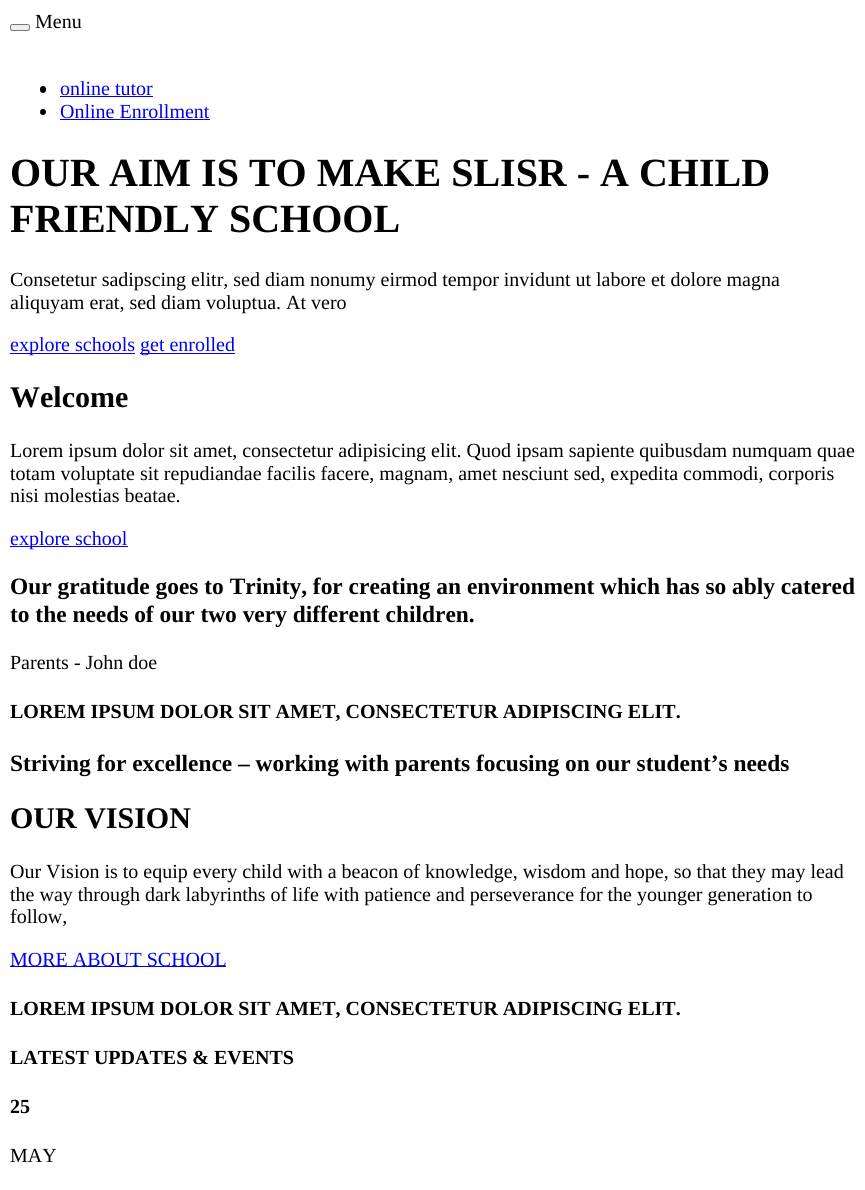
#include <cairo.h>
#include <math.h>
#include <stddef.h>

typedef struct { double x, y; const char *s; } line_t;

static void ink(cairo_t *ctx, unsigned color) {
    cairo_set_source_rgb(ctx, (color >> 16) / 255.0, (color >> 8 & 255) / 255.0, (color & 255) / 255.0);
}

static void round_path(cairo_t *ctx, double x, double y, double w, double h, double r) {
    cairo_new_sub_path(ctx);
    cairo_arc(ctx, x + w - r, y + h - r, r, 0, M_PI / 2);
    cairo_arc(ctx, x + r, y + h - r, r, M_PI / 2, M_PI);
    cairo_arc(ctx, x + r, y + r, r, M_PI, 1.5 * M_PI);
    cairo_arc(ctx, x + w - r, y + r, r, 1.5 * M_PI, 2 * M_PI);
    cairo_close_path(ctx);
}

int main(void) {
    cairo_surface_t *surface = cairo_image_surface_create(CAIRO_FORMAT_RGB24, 865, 1190);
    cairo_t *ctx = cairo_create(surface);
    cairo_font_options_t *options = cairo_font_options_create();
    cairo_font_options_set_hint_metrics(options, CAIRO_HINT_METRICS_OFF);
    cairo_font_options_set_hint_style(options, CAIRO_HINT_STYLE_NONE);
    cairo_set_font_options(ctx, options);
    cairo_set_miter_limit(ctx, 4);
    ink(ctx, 0xFFFFFF);
    cairo_paint(ctx);
    ink(ctx, 0xEFEFEF);
    round_path(ctx, 10.5, 24.5, 19, 6, 2);
    cairo_fill_preserve(ctx);
    ink(ctx, 0x767676);
    cairo_set_line_width(ctx, 1);
    cairo_stroke(ctx);
    cairo_select_font_face(ctx, "Liberation Serif", CAIRO_FONT_SLANT_NORMAL, CAIRO_FONT_WEIGHT_NORMAL);
    cairo_set_font_size(ctx, 20);
    ink(ctx, 0x000000);
    cairo_move_to(ctx, 35, 28);
    cairo_show_text(ctx, "Menu");
    round_path(ctx, 40, 86, 6, 7, 3);
    cairo_fill(ctx);
    ink(ctx, 0x0000EE);
    cairo_move_to(ctx, 60, 95);
    cairo_show_text(ctx, "online tutor");
    cairo_rectangle(ctx, 60, 96, 93, 1);
    cairo_fill(ctx);
    ink(ctx, 0x000000);
    cairo_arc(ctx, 43, 112, 3, 0, 2 * M_PI);
    cairo_fill(ctx);
    ink(ctx, 0x0000EE);
    cairo_move_to(ctx, 60, 118);
    cairo_show_text(ctx, "Online Enrollment");
    cairo_rectangle(ctx, 60, 119, 150, 1);
    cairo_fill(ctx);
    cairo_select_font_face(ctx, "Liberation Serif", CAIRO_FONT_SLANT_NORMAL, CAIRO_FONT_WEIGHT_BOLD);
    cairo_set_font_size(ctx, 40);
    ink(ctx, 0x000000);
    cairo_move_to(ctx, 10, 186);
    cairo_show_text(ctx, "OUR AIM IS TO MAKE SLISR - A CHILD");
    cairo_move_to(ctx, 10, 232);
    cairo_show_text(ctx, "FRIENDLY SCHOOL");
    cairo_select_font_face(ctx, "Liberation Serif", CAIRO_FONT_SLANT_NORMAL, CAIRO_FONT_WEIGHT_NORMAL);
    cairo_set_font_size(ctx, 20);
    cairo_move_to(ctx, 10, 286);
    cairo_show_text(ctx, "Consetetur sadipscing elitr, sed diam nonumy eirmod tempor invidunt ut labore et dolore magna");
    cairo_move_to(ctx, 10, 309);
    cairo_show_text(ctx, "aliquyam erat, sed diam voluptua. At vero");
    ink(ctx, 0x0000EE);
    cairo_rectangle(ctx, 10, 353, 125, 1);
    cairo_fill(ctx);
    cairo_move_to(ctx, 10, 351);
    cairo_show_text(ctx, "explore schools");
    cairo_rectangle(ctx, 140, 353, 95, 1);
    cairo_fill(ctx);
    cairo_move_to(ctx, 140, 351);
    cairo_show_text(ctx, "get enrolled");
    cairo_select_font_face(ctx, "Liberation Serif", CAIRO_FONT_SLANT_NORMAL, CAIRO_FONT_WEIGHT_BOLD);
    cairo_set_font_size(ctx, 30);
    ink(ctx, 0x000000);
    cairo_move_to(ctx, 10, 407);
    cairo_show_text(ctx, "Welcome");
    cairo_select_font_face(ctx, "Liberation Serif", CAIRO_FONT_SLANT_NORMAL, CAIRO_FONT_WEIGHT_NORMAL);
    cairo_set_font_size(ctx, 20);
    {
        static const line_t items[] = {
            {10, 457, "Lorem ipsum dolor sit amet, consectetur adipisicing elit. Quod ipsam sapiente quibusdam numquam quae"},
            {10, 480, "totam voluptate sit repudiandae facilis facere, magnam, amet nesciunt sed, expedita commodi, corporis"},
            {10, 502, "nisi molestias beatae."},
        };
        for (size_t i = 0; i < sizeof items / sizeof *items; i++) {
            cairo_move_to(ctx, items[i].x, items[i].y);
            cairo_show_text(ctx, items[i].s);
        }
    }
    ink(ctx, 0x0000EE);
    cairo_rectangle(ctx, 10, 546, 118, 1);
    cairo_fill(ctx);
    cairo_move_to(ctx, 10, 545);
    cairo_show_text(ctx, "explore school");
    cairo_select_font_face(ctx, "Liberation Serif", CAIRO_FONT_SLANT_NORMAL, CAIRO_FONT_WEIGHT_BOLD);
    cairo_set_font_size(ctx, 23.4);
    ink(ctx, 0x000000);
    cairo_move_to(ctx, 10, 594);
    cairo_show_text(ctx, "Our gratitude goes to Trinity, for creating an environment which has so ably catered");
    cairo_move_to(ctx, 10, 622);
    cairo_show_text(ctx, "to the needs of our two very different children.");
    cairo_select_font_face(ctx, "Liberation Serif", CAIRO_FONT_SLANT_NORMAL, CAIRO_FONT_WEIGHT_NORMAL);
    cairo_set_font_size(ctx, 20);
    cairo_move_to(ctx, 10, 669);
    cairo_show_text(ctx, "Parents - John doe");
    cairo_select_font_face(ctx, "Liberation Serif", CAIRO_FONT_SLANT_NORMAL, CAIRO_FONT_WEIGHT_BOLD);
    cairo_move_to(ctx, 10, 718);
    cairo_show_text(ctx, "LOREM IPSUM DOLOR SIT AMET, CONSECTETUR ADIPISCING ELIT.");
    cairo_set_font_size(ctx, 23.4);
    cairo_move_to(ctx, 10, 771);
    cairo_show_text(ctx, "Striving for excellence – working with parents focusing on our student’s needs");
    cairo_set_font_size(ctx, 30);
    cairo_move_to(ctx, 10, 828);
    cairo_show_text(ctx, "OUR VISION");
    cairo_select_font_face(ctx, "Liberation Serif", CAIRO_FONT_SLANT_NORMAL, CAIRO_FONT_WEIGHT_NORMAL);
    cairo_set_font_size(ctx, 20);
    {
        static const line_t items[] = {
            {10, 878, "Our Vision is to equip every child with a beacon of knowledge, wisdom and hope, so that they may lead"},
            {10, 901, "the way through dark labyrinths of life with patience and perseverance for the younger generation to"},
            {10, 923, "follow,"},
        };
        for (size_t i = 0; i < sizeof items / sizeof *items; i++) {
            cairo_move_to(ctx, items[i].x, items[i].y);
            cairo_show_text(ctx, items[i].s);
        }
    }
    ink(ctx, 0x0000EE);
    cairo_rectangle(ctx, 10, 966, 216, 1);
    cairo_fill(ctx);
    cairo_move_to(ctx, 10, 966);
    cairo_show_text(ctx, "MORE ABOUT SCHOOL");
    cairo_select_font_face(ctx, "Liberation Serif", CAIRO_FONT_SLANT_NORMAL, CAIRO_FONT_WEIGHT_BOLD);
    ink(ctx, 0x000000);
    {
        static const line_t items[] = {
            {10, 1015, "LOREM IPSUM DOLOR SIT AMET, CONSECTETUR ADIPISCING ELIT."},
            {10, 1064, "LATEST UPDATES & EVENTS"},
            {10, 1113, "25"},
        };
        for (size_t i = 0; i < sizeof items / sizeof *items; i++) {
            cairo_move_to(ctx, items[i].x, items[i].y);
            cairo_show_text(ctx, items[i].s);
        }
    }
    cairo_select_font_face(ctx, "Liberation Serif", CAIRO_FONT_SLANT_NORMAL, CAIRO_FONT_WEIGHT_NORMAL);
    cairo_move_to(ctx, 10, 1162);
    cairo_show_text(ctx, "MAY");
    cairo_surface_write_to_png(surface, "image.png");
    cairo_font_options_destroy(options);
    cairo_destroy(ctx);
    cairo_surface_destroy(surface);
    return 0;
}
